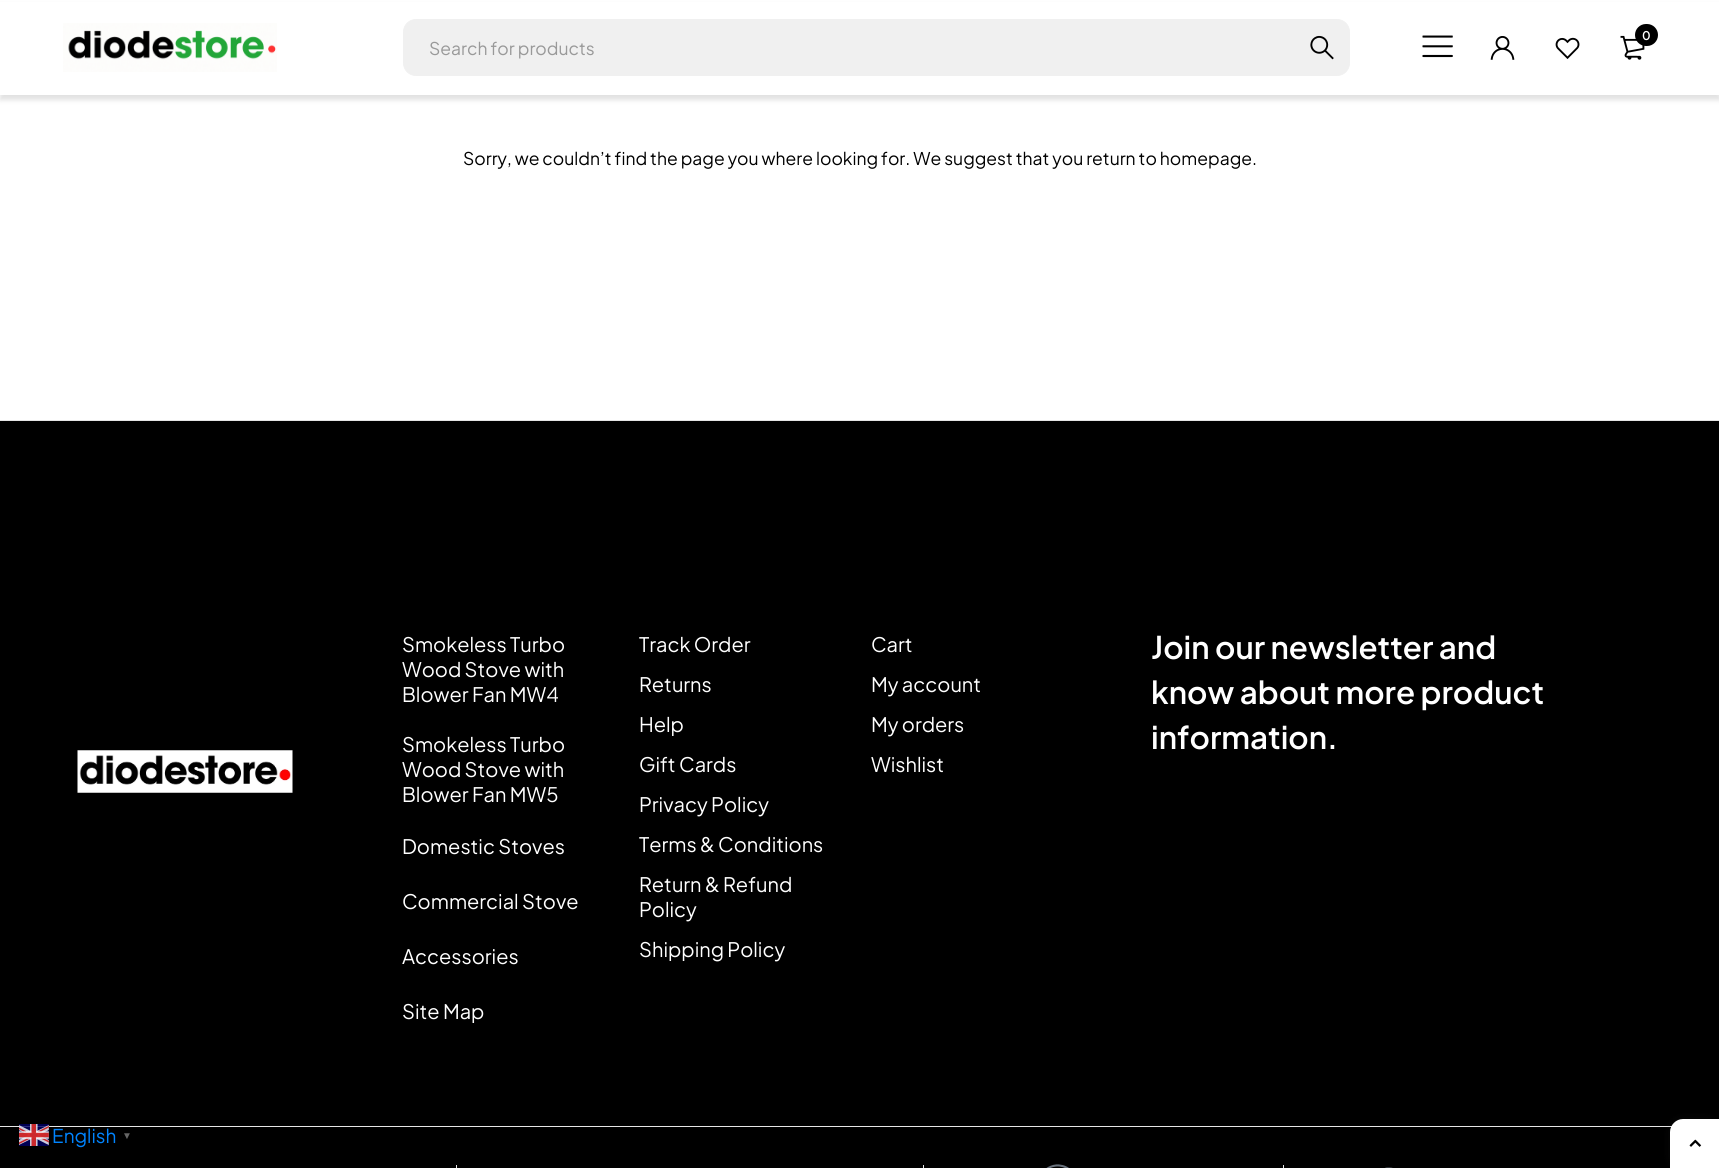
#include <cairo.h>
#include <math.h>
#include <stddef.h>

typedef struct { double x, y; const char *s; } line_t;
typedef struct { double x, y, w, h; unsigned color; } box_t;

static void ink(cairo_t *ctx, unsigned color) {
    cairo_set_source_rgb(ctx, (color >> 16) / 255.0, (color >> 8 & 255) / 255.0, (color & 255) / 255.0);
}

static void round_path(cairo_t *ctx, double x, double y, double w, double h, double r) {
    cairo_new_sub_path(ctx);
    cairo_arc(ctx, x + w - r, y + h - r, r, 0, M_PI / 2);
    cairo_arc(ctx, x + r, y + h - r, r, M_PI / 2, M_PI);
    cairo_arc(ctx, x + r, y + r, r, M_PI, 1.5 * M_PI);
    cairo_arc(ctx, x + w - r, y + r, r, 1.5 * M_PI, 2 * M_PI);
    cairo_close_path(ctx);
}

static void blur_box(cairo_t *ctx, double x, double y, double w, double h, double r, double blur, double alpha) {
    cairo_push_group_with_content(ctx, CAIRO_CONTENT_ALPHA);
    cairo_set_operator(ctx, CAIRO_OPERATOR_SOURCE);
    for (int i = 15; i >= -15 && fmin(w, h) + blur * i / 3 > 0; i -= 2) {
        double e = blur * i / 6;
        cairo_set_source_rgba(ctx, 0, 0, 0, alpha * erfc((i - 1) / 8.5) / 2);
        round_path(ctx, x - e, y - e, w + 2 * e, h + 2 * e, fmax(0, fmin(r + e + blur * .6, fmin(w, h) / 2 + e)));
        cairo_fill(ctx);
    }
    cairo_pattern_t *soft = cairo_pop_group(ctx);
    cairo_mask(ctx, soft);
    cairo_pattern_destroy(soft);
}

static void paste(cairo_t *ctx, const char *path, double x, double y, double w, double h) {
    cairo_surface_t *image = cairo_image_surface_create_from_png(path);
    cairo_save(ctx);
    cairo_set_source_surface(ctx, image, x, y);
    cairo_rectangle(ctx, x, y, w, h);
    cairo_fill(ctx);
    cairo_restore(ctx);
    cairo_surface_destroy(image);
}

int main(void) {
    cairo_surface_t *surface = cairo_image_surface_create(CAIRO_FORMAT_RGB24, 1719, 1168);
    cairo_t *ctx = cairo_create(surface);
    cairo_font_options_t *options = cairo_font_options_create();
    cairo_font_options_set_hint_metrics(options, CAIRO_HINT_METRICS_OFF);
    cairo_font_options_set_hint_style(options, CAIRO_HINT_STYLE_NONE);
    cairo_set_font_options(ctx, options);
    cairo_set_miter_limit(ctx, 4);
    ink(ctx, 0xFFFFFF);
    cairo_paint(ctx);
    ink(ctx, 0x9B9B9B);
    blur_box(ctx, 0, 5, 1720, 95, 0, 2.5, 0.3);
    ink(ctx, 0xFFFFFF);
    cairo_rectangle(ctx, 0, 2, 1719, 93);
    cairo_fill(ctx);
    paste(ctx, "media/1.png", 63, 23, 214, 49);
    paste(ctx, "media/2.png", 1422, 35, 31, 23);
    paste(ctx, "media/3.png", 1490, 36, 25, 24);
    paste(ctx, "media/4.png", 1555, 37, 25, 22);
    paste(ctx, "media/5.png", 1620, 35, 25, 25);
    ink(ctx, 0x000000);
    round_path(ctx, 1635, 24, 23, 22, 11);
    cairo_fill(ctx);
    cairo_select_font_face(ctx, "Plus Jakarta Sans SemiBold", CAIRO_FONT_SLANT_NORMAL, CAIRO_FONT_WEIGHT_NORMAL);
    cairo_set_font_size(ctx, 12);
    ink(ctx, 0xFFFFFF);
    cairo_move_to(ctx, 1642, 40);
    cairo_show_text(ctx, "0");
    ink(ctx, 0xF0F0F0);
    round_path(ctx, 403.5, 19.5, 946, 56, 12.5);
    cairo_fill_preserve(ctx);
    cairo_set_line_width(ctx, 1);
    cairo_stroke(ctx);
    cairo_select_font_face(ctx, "Plus Jakarta Sans", CAIRO_FONT_SLANT_NORMAL, CAIRO_FONT_WEIGHT_NORMAL);
    cairo_set_font_size(ctx, 17.5);
    ink(ctx, 0x999999);
    cairo_move_to(ctx, 429, 55);
    cairo_show_text(ctx, "Search for products");
    paste(ctx, "media/6.png", 1310, 35, 24, 25);
    ink(ctx, 0x000000);
    cairo_move_to(ctx, 463, 165);
    cairo_show_text(ctx, "Sorry, we couldn’t find the page you where looking for. We suggest that you return to homepage.");
    cairo_rectangle(ctx, 0, 421, 1719, 747);
    cairo_fill(ctx);
    ink(ctx, 0xE5E5E5);
    cairo_rectangle(ctx, 0, 420, 1719, 1);
    cairo_fill(ctx);
    paste(ctx, "media/7.png", 77, 750, 216, 43);
    cairo_set_font_size(ctx, 20);
    ink(ctx, 0xFFFFFF);
    {
        static const line_t items[] = {
            {402, 652, "Smokeless Turbo"},
            {402, 677, "Wood Stove with"},
            {402, 702, "Blower Fan MW4"},
            {402, 752, "Smokeless Turbo"},
            {402, 777, "Wood Stove with"},
            {402, 802, "Blower Fan MW5"},
            {402, 854, "Domestic Stoves"},
            {402, 909, "Commercial Stove"},
            {402, 964, "Accessories"},
            {402, 1019, "Site Map"},
            {639, 652, "Track Order"},
            {639, 692, "Returns"},
            {639, 732, "Help"},
            {639, 772, "Gift Cards"},
            {639, 812, "Privacy Policy"},
            {639, 852, "Terms & Conditions"},
            {639, 892, "Return & Refund"},
            {639, 917, "Policy"},
            {639, 957, "Shipping Policy"},
            {871, 652, "Cart"},
            {871, 692, "My account"},
            {871, 732, "My orders"},
            {871, 772, "Wishlist"},
        };
        for (size_t i = 0; i < sizeof items / sizeof *items; i++) {
            cairo_move_to(ctx, items[i].x, items[i].y);
            cairo_show_text(ctx, items[i].s);
        }
    }
    cairo_select_font_face(ctx, "Plus Jakarta Sans SemiBold", CAIRO_FONT_SLANT_NORMAL, CAIRO_FONT_WEIGHT_NORMAL);
    cairo_set_font_size(ctx, 31.25);
    {
        static const line_t items[] = {
            {1151, 659, "Join our newsletter and"},
            {1151, 704, "know about more product"},
            {1151, 749, "information."},
        };
        for (size_t i = 0; i < sizeof items / sizeof *items; i++) {
            cairo_move_to(ctx, items[i].x, items[i].y);
            cairo_show_text(ctx, items[i].s);
        }
    }
    {
        static const box_t items[] = {
            {0, 1126, 1672, 1, 0xE5E5E5},
            {456, 1165, 1, 3, 0xE5E5E5},
            {923, 1165, 1, 3, 0xE5E5E5},
            {1283, 1165, 1, 3, 0xE5E5E5},
        };
        for (size_t i = 0; i < sizeof items / sizeof *items; i++) {
            ink(ctx, items[i].color);
            cairo_rectangle(ctx, items[i].x, items[i].y, items[i].w, items[i].h);
            cairo_fill(ctx);
        }
    }
    paste(ctx, "media/8.png", 1046, 1164, 23, 4);
    paste(ctx, "media/9.png", 1385, 1167, 8, 1);
    paste(ctx, "media/10.png", 19, 1124, 30, 22);
    cairo_select_font_face(ctx, "Plus Jakarta Sans", CAIRO_FONT_SLANT_NORMAL, CAIRO_FONT_WEIGHT_NORMAL);
    cairo_set_font_size(ctx, 19);
    ink(ctx, 0x0084FF);
    cairo_move_to(ctx, 52, 1143);
    cairo_show_text(ctx, "English");
    cairo_select_font_face(ctx, "Liberation Serif", CAIRO_FONT_SLANT_NORMAL, CAIRO_FONT_WEIGHT_BOLD);
    cairo_set_font_size(ctx, 10);
    ink(ctx, 0x666666);
    cairo_move_to(ctx, 122, 1139);
    cairo_show_text(ctx, "▼");
    ink(ctx, 0x646464);
    blur_box(ctx, 1670, 1119, 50, 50, 13, 4, 0.1);
    ink(ctx, 0xFFFFFF);
    cairo_new_path(ctx);
    cairo_move_to(ctx, 1683, 1119);
    cairo_line_to(ctx, 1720, 1119);
    cairo_line_to(ctx, 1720, 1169);
    cairo_line_to(ctx, 1670, 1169);
    cairo_line_to(ctx, 1670, 1132);
    cairo_curve_to(ctx, 1670, 1125, 1676, 1119, 1683, 1119);
    cairo_close_path(ctx);
    cairo_fill(ctx);
    paste(ctx, "media/11.png", 1689, 1139, 13, 8);
    cairo_surface_write_to_png(surface, "image.png");
    cairo_font_options_destroy(options);
    cairo_destroy(ctx);
    cairo_surface_destroy(surface);
    return 0;
}
